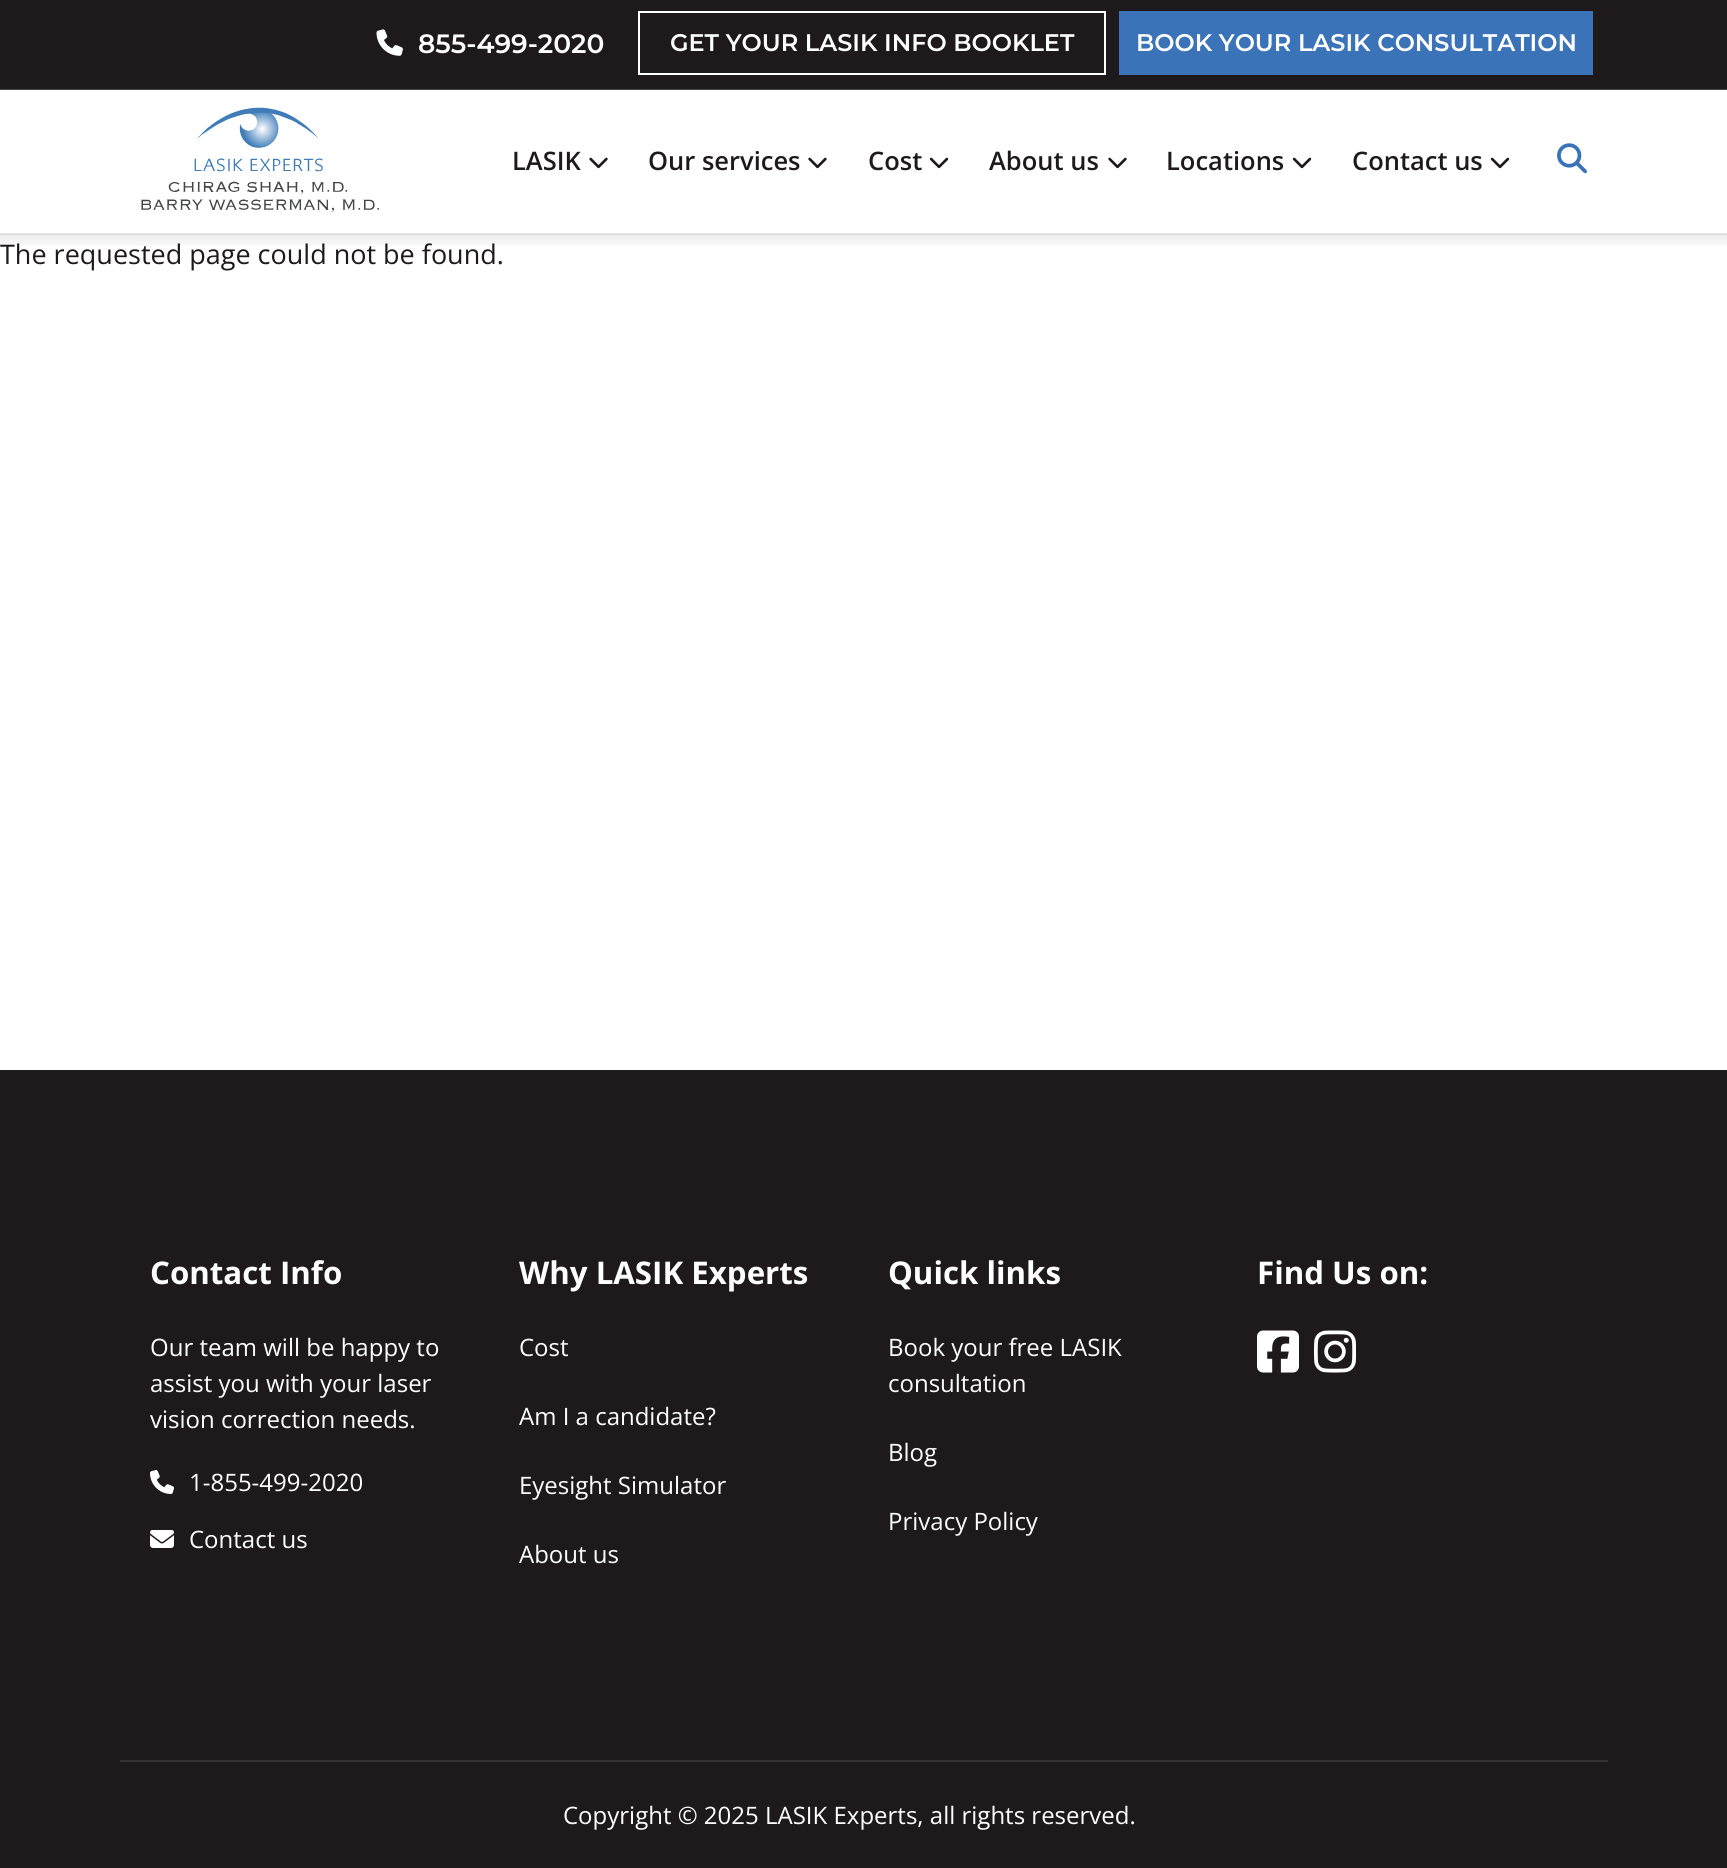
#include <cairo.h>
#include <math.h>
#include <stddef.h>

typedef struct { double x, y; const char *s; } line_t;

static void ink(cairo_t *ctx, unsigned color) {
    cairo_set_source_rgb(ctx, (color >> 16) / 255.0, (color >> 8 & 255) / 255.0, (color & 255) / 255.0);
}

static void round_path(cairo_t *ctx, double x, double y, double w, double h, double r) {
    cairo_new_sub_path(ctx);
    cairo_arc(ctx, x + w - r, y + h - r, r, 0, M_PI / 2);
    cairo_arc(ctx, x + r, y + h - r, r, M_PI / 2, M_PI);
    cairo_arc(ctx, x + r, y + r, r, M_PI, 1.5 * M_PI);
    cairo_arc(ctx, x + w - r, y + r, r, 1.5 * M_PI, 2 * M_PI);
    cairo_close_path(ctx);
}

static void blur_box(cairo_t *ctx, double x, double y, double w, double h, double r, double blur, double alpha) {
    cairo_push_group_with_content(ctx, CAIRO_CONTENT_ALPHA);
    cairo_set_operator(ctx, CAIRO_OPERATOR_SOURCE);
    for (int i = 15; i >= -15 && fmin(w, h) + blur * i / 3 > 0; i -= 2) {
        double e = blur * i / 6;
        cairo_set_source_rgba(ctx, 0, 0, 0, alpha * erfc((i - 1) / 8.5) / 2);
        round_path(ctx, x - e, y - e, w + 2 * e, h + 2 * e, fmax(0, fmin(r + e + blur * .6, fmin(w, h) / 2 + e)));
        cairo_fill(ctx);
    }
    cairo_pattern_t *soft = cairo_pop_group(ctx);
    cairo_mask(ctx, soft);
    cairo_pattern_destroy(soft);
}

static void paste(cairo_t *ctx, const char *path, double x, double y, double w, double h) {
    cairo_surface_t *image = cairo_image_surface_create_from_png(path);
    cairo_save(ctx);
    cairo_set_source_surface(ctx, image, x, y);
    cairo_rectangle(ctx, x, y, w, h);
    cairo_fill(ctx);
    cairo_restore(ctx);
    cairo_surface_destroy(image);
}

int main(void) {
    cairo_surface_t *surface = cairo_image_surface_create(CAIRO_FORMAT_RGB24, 1727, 1868);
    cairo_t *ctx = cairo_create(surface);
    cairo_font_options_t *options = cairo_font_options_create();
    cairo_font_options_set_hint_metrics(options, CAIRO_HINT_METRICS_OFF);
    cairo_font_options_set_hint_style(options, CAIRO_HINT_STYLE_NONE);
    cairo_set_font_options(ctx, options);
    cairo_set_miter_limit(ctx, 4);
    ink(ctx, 0xFFFFFF);
    cairo_paint(ctx);
    cairo_save(ctx);
    cairo_rectangle(ctx, 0, 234, 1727, 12);
    cairo_clip(ctx);
    ink(ctx, 0x000000);
    blur_box(ctx, -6, -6, 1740, 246, 0, 7.5, 0.1);
    cairo_restore(ctx);
    cairo_set_source_rgba(ctx, 0, 0, 0, 0.08);
    cairo_rectangle(ctx, 0, 233, 1727, 2);
    cairo_fill(ctx);
    ink(ctx, 0x1E1A1B);
    cairo_rectangle(ctx, 0, 0, 1727, 89);
    cairo_fill(ctx);
    ink(ctx, 0x4B4849);
    cairo_rectangle(ctx, 0, 89, 1727, 1);
    cairo_fill(ctx);
    paste(ctx, "media/1.png", 376, 29, 27, 27);
    cairo_select_font_face(ctx, "Montserrat Thin", CAIRO_FONT_SLANT_NORMAL, CAIRO_FONT_WEIGHT_NORMAL);
    cairo_set_font_size(ctx, 26.5);
    ink(ctx, 0xFFFFFF);
    cairo_move_to(ctx, 418, 53);
    cairo_show_text(ctx, "855-499-2020");
    cairo_rectangle(ctx, 639, 12, 466, 62);
    cairo_stroke(ctx);
    cairo_set_font_size(ctx, 24);
    cairo_move_to(ctx, 670, 51);
    cairo_show_text(ctx, "GET YOUR LASIK INFO BOOKLET");
    ink(ctx, 0x3B73B9);
    cairo_rectangle(ctx, 1119, 11, 474, 64);
    cairo_fill(ctx);
    ink(ctx, 0xFFFFFF);
    cairo_move_to(ctx, 1136, 51);
    cairo_show_text(ctx, "BOOK YOUR LASIK CONSULTATION");
    paste(ctx, "media/2.png", 140, 107, 239, 105);
    cairo_select_font_face(ctx, "Open Sans SemiBold", CAIRO_FONT_SLANT_NORMAL, CAIRO_FONT_WEIGHT_NORMAL);
    cairo_set_font_size(ctx, 25.5);
    ink(ctx, 0x1E1A1B);
    cairo_move_to(ctx, 512, 170);
    cairo_show_text(ctx, "LASIK");
    paste(ctx, "media/3.png", 589, 157, 19, 12);
    cairo_move_to(ctx, 648, 170);
    cairo_show_text(ctx, "Our services");
    paste(ctx, "media/3.png", 808, 157, 19, 12);
    cairo_move_to(ctx, 868, 170);
    cairo_show_text(ctx, "Cost");
    paste(ctx, "media/4.png", 929, 157, 20, 12);
    cairo_move_to(ctx, 989, 170);
    cairo_show_text(ctx, "About us");
    paste(ctx, "media/3.png", 1108, 157, 19, 12);
    cairo_move_to(ctx, 1166, 170);
    cairo_show_text(ctx, "Locations");
    paste(ctx, "media/4.png", 1292, 157, 20, 12);
    cairo_move_to(ctx, 1352, 170);
    cairo_show_text(ctx, "Contact us");
    paste(ctx, "media/4.png", 1490, 157, 20, 12);
    paste(ctx, "media/5.png", 1557, 143, 30, 31);
    cairo_select_font_face(ctx, "Open Sans", CAIRO_FONT_SLANT_NORMAL, CAIRO_FONT_WEIGHT_NORMAL);
    cairo_set_font_size(ctx, 27);
    cairo_move_to(ctx, 0, 264);
    cairo_show_text(ctx, "The requested page could not be found.");
    cairo_rectangle(ctx, 0, 1070, 1727, 798);
    cairo_fill(ctx);
    cairo_select_font_face(ctx, "Open Sans", CAIRO_FONT_SLANT_NORMAL, CAIRO_FONT_WEIGHT_BOLD);
    cairo_set_font_size(ctx, 31.25);
    ink(ctx, 0xFFFFFF);
    cairo_move_to(ctx, 150, 1284);
    cairo_show_text(ctx, "Contact Info");
    cairo_select_font_face(ctx, "Open Sans", CAIRO_FONT_SLANT_NORMAL, CAIRO_FONT_WEIGHT_NORMAL);
    cairo_set_font_size(ctx, 24);
    {
        static const line_t items[] = {
            {150, 1356, "Our team will be happy to"},
            {150, 1392, "assist you with your laser"},
            {150, 1428, "vision correction needs."},
        };
        for (size_t i = 0; i < sizeof items / sizeof *items; i++) {
            cairo_move_to(ctx, items[i].x, items[i].y);
            cairo_show_text(ctx, items[i].s);
        }
    }
    paste(ctx, "media/6.png", 150, 1470, 24, 24);
    cairo_move_to(ctx, 189, 1491);
    cairo_show_text(ctx, "1-855-499-2020");
    paste(ctx, "media/7.png", 150, 1530, 24, 18);
    cairo_move_to(ctx, 189, 1548);
    cairo_show_text(ctx, "Contact us");
    cairo_select_font_face(ctx, "Open Sans", CAIRO_FONT_SLANT_NORMAL, CAIRO_FONT_WEIGHT_BOLD);
    cairo_set_font_size(ctx, 31.25);
    cairo_move_to(ctx, 519, 1284);
    cairo_show_text(ctx, "Why LASIK Experts");
    cairo_select_font_face(ctx, "Open Sans", CAIRO_FONT_SLANT_NORMAL, CAIRO_FONT_WEIGHT_NORMAL);
    cairo_set_font_size(ctx, 24);
    {
        static const line_t items[] = {
            {519, 1356, "Cost"},
            {519, 1425, "Am I a candidate?"},
            {519, 1494, "Eyesight Simulator"},
            {519, 1563, "About us"},
        };
        for (size_t i = 0; i < sizeof items / sizeof *items; i++) {
            cairo_move_to(ctx, items[i].x, items[i].y);
            cairo_show_text(ctx, items[i].s);
        }
    }
    cairo_select_font_face(ctx, "Open Sans", CAIRO_FONT_SLANT_NORMAL, CAIRO_FONT_WEIGHT_BOLD);
    cairo_set_font_size(ctx, 31.25);
    cairo_move_to(ctx, 888, 1284);
    cairo_show_text(ctx, "Quick links");
    cairo_select_font_face(ctx, "Open Sans", CAIRO_FONT_SLANT_NORMAL, CAIRO_FONT_WEIGHT_NORMAL);
    cairo_set_font_size(ctx, 24);
    {
        static const line_t items[] = {
            {888, 1356, "Book your free LASIK"},
            {888, 1392, "consultation"},
            {888, 1461, "Blog"},
            {888, 1530, "Privacy Policy"},
        };
        for (size_t i = 0; i < sizeof items / sizeof *items; i++) {
            cairo_move_to(ctx, items[i].x, items[i].y);
            cairo_show_text(ctx, items[i].s);
        }
    }
    cairo_select_font_face(ctx, "Open Sans", CAIRO_FONT_SLANT_NORMAL, CAIRO_FONT_WEIGHT_BOLD);
    cairo_set_font_size(ctx, 31.25);
    cairo_move_to(ctx, 1257, 1284);
    cairo_show_text(ctx, "Find Us on:");
    paste(ctx, "media/8.png", 1257, 1330, 42, 43);
    paste(ctx, "media/9.png", 1314, 1330, 42, 43);
    ink(ctx, 0x353132);
    cairo_rectangle(ctx, 120, 1760, 1488, 2);
    cairo_fill(ctx);
    cairo_select_font_face(ctx, "Open Sans", CAIRO_FONT_SLANT_NORMAL, CAIRO_FONT_WEIGHT_NORMAL);
    cairo_set_font_size(ctx, 24);
    ink(ctx, 0xFFFFFF);
    cairo_move_to(ctx, 563, 1824);
    cairo_show_text(ctx, "Copyright © 2025 LASIK Experts, all rights reserved.");
    cairo_surface_write_to_png(surface, "image.png");
    cairo_font_options_destroy(options);
    cairo_destroy(ctx);
    cairo_surface_destroy(surface);
    return 0;
}
